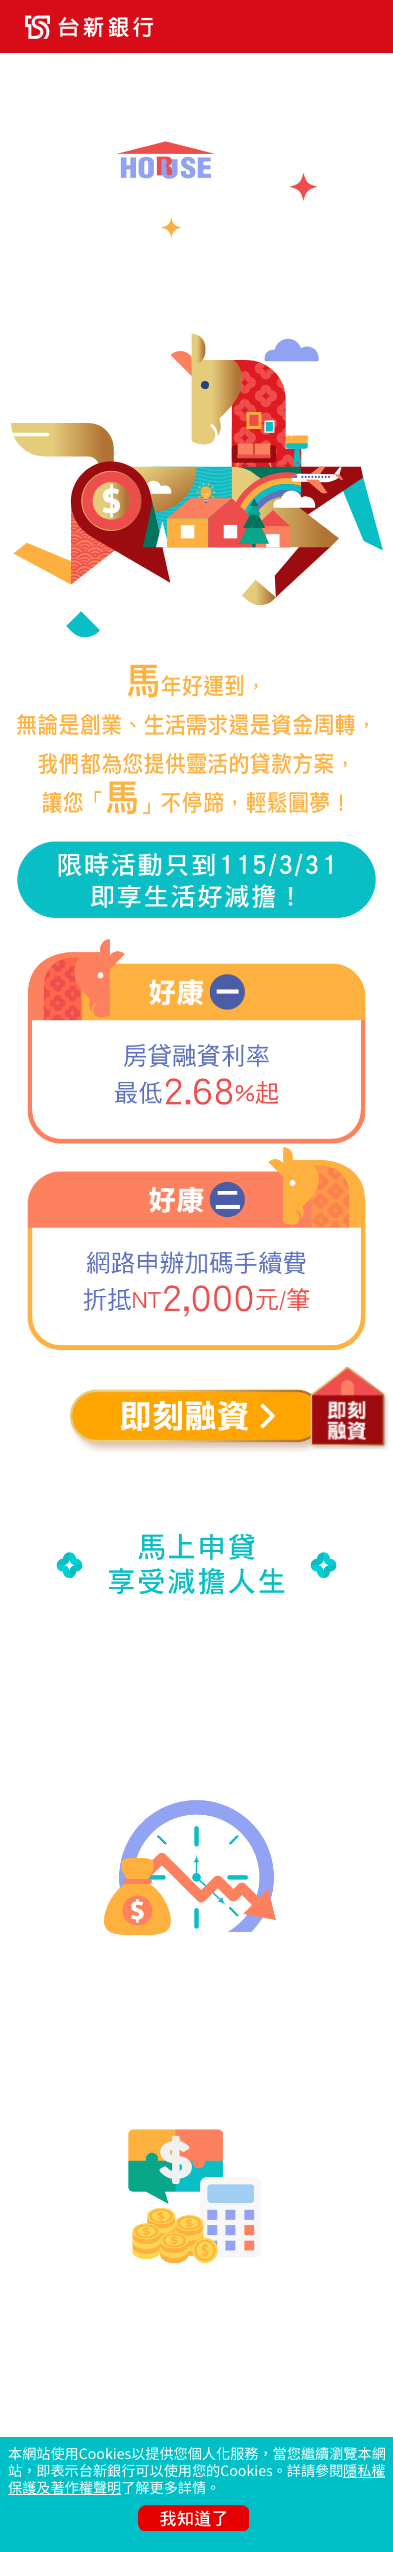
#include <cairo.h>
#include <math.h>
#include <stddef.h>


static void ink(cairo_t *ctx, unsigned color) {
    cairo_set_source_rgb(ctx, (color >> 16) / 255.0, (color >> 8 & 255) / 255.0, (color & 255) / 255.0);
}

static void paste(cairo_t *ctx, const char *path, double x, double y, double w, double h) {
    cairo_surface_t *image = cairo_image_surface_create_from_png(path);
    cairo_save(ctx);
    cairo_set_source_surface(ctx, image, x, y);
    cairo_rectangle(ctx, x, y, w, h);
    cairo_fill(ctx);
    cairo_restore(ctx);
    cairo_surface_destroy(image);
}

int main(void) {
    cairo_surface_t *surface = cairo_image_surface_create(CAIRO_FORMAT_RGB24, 393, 2552);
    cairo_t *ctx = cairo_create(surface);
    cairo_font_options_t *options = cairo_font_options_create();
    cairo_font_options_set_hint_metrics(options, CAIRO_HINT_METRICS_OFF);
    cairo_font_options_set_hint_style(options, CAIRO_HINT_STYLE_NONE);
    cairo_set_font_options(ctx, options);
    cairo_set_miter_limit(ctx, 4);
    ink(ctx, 0xFFFFFF);
    cairo_paint(ctx);
    ink(ctx, 0xD70C18);
    cairo_rectangle(ctx, 0, 0, 393, 53);
    cairo_fill(ctx);
    paste(ctx, "media/1.png", 25, 15, 129, 24);
    paste(ctx, "media/2.png", 116, 141, 202, 97);
    paste(ctx, "media/3.png", 11, 333, 372, 305);
    paste(ctx, "media/4.png", 17, 664, 351, 151);
    paste(ctx, "media/5.png", 17, 841, 359, 77);
    paste(ctx, "media/6.png", 27, 939, 339, 205);
    paste(ctx, "media/7.png", 27, 1147, 339, 203);
    paste(ctx, "media/8.png", 70, 1389, 253, 64);
    paste(ctx, "media/9.png", 118, 1400, 160, 32);
    paste(ctx, "media/10.png", 56, 1533, 281, 62);
    paste(ctx, "media/11.png", 104, 1800, 172, 136);
    paste(ctx, "media/12.png", 128, 2129, 133, 134);
    paste(ctx, "media/13.png", 310, 1366, 79, 84);
    paste(ctx, "media/14.png", 324, 1400, 42, 44);
    ink(ctx, 0x00C0C7);
    cairo_rectangle(ctx, 0, 2437, 393, 115);
    cairo_fill(ctx);
    cairo_select_font_face(ctx, "Noto Sans TC", CAIRO_FONT_SLANT_NORMAL, CAIRO_FONT_WEIGHT_NORMAL);
    cairo_set_font_size(ctx, 14.15);
    ink(ctx, 0xFFFFFF);
    cairo_move_to(ctx, 8, 2459);
    cairo_show_text(ctx, "本網站使用Cookies以提供您個人化服務，當您繼續瀏覽本網");
    cairo_move_to(ctx, 8, 2476);
    cairo_show_text(ctx, "站，即表示台新銀行可以使用您的Cookies。詳請參閱");
    cairo_rectangle(ctx, 343, 2477, 42, 1);
    cairo_fill(ctx);
    cairo_move_to(ctx, 343, 2476);
    cairo_show_text(ctx, "隱私權");
    cairo_rectangle(ctx, 8, 2494, 113, 1);
    cairo_fill(ctx);
    cairo_move_to(ctx, 8, 2493);
    cairo_show_text(ctx, "保護及著作權聲明了解更多詳情。");
    paste(ctx, "media/15.png", 138, 2505, 111, 26);
    cairo_surface_write_to_png(surface, "image.png");
    cairo_font_options_destroy(options);
    cairo_destroy(ctx);
    cairo_surface_destroy(surface);
    return 0;
}
